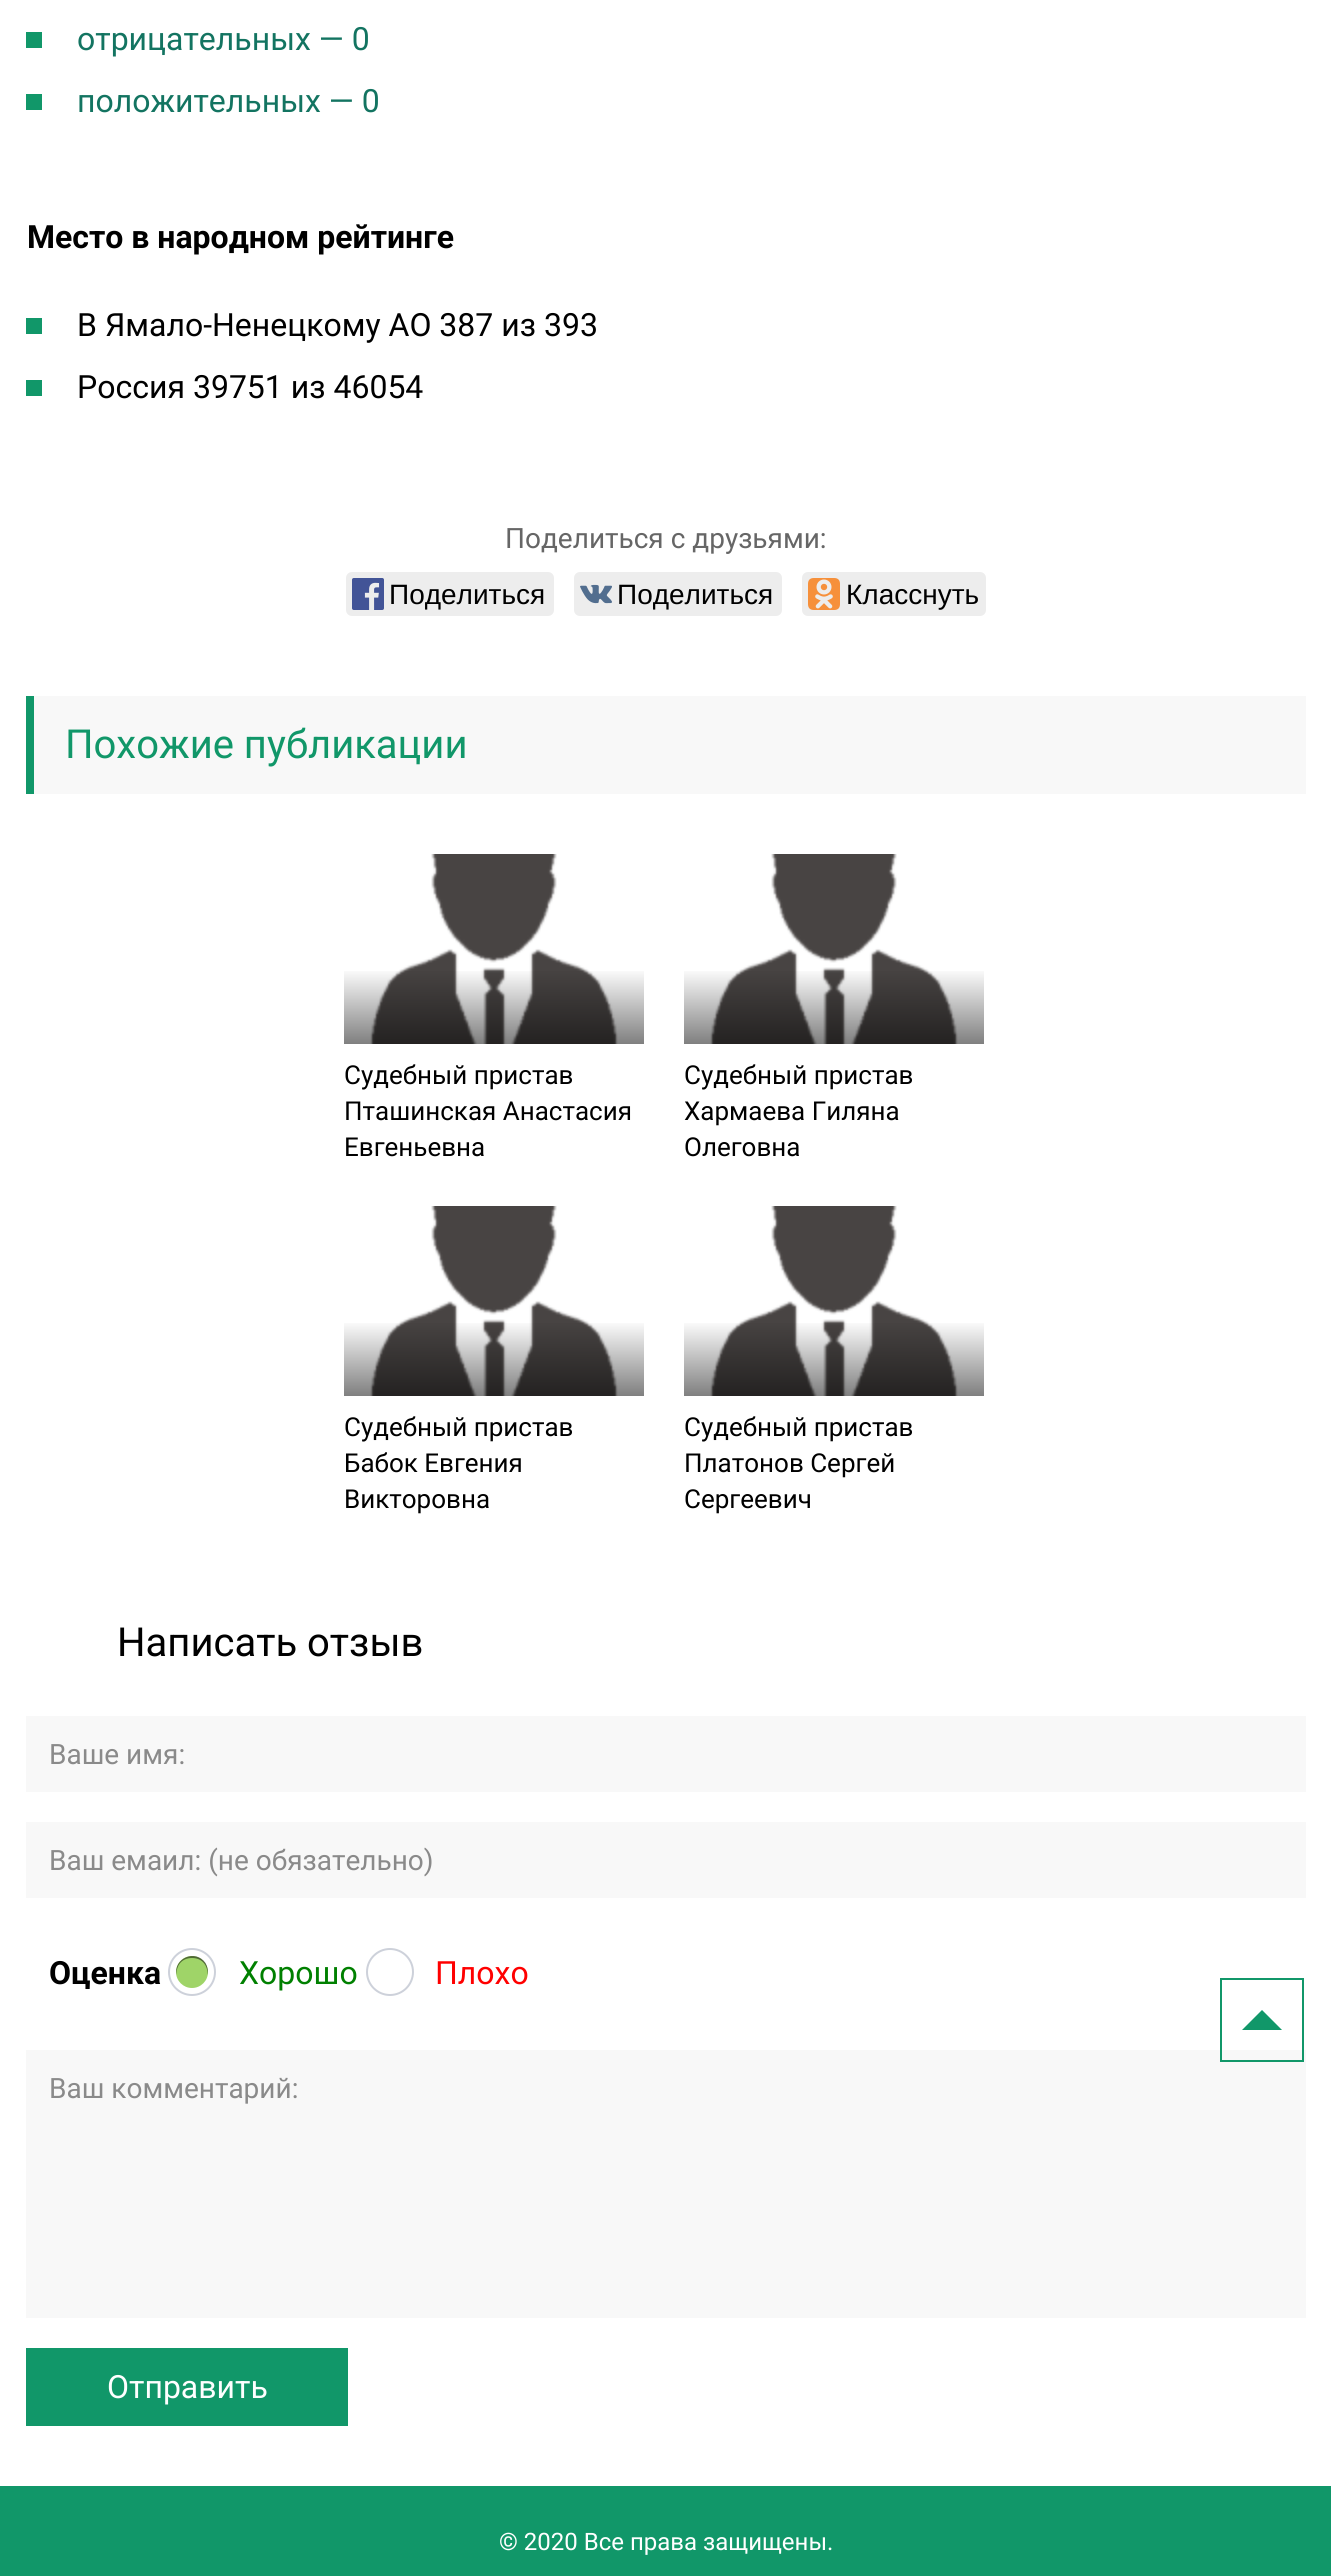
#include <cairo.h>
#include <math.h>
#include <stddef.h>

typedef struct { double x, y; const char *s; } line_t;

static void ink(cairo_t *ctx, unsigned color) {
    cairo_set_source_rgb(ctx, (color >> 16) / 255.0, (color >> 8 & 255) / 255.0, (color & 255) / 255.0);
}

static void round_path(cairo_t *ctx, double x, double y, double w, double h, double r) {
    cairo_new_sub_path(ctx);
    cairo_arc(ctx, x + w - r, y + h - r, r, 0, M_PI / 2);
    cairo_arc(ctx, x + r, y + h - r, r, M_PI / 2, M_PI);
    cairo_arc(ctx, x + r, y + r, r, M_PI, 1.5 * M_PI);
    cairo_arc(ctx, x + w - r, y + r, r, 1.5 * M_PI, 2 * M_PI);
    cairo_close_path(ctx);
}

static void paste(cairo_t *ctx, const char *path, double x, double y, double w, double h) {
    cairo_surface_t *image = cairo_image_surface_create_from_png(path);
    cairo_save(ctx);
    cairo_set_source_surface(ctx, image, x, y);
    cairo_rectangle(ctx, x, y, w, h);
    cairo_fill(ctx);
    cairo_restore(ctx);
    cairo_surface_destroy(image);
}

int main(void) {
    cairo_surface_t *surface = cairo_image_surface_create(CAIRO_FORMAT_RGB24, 1331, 2576);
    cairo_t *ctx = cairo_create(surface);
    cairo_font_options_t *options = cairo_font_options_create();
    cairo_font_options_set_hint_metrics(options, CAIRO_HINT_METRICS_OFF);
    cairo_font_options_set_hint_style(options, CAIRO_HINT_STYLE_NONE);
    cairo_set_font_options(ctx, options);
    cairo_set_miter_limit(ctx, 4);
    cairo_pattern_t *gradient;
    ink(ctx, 0xFFFFFF);
    cairo_paint(ctx);
    ink(ctx, 0x119769);
    cairo_rectangle(ctx, 26, 32, 16, 16);
    cairo_fill(ctx);
    cairo_select_font_face(ctx, "Roboto", CAIRO_FONT_SLANT_NORMAL, CAIRO_FONT_WEIGHT_NORMAL);
    cairo_set_font_size(ctx, 32);
    ink(ctx, 0x137461);
    cairo_move_to(ctx, 77, 50);
    cairo_show_text(ctx, "отрицательных — 0");
    ink(ctx, 0x119769);
    cairo_rectangle(ctx, 26, 94, 16, 16);
    cairo_fill(ctx);
    ink(ctx, 0x137461);
    cairo_move_to(ctx, 77, 112);
    cairo_show_text(ctx, "положительных — 0");
    cairo_select_font_face(ctx, "Roboto", CAIRO_FONT_SLANT_NORMAL, CAIRO_FONT_WEIGHT_BOLD);
    ink(ctx, 0x000000);
    cairo_move_to(ctx, 27, 248);
    cairo_show_text(ctx, "Место в народном рейтинге");
    ink(ctx, 0x119769);
    cairo_rectangle(ctx, 26, 318, 16, 16);
    cairo_fill(ctx);
    cairo_select_font_face(ctx, "Roboto", CAIRO_FONT_SLANT_NORMAL, CAIRO_FONT_WEIGHT_NORMAL);
    ink(ctx, 0x000000);
    cairo_move_to(ctx, 77, 336);
    cairo_show_text(ctx, "В Ямало-Ненецкому АО 387 из 393");
    ink(ctx, 0x119769);
    cairo_rectangle(ctx, 26, 380, 16, 16);
    cairo_fill(ctx);
    ink(ctx, 0x000000);
    cairo_move_to(ctx, 77, 398);
    cairo_show_text(ctx, "Россия 39751 из 46054");
    cairo_set_font_size(ctx, 28);
    ink(ctx, 0x666666);
    cairo_move_to(ctx, 505, 548);
    cairo_show_text(ctx, "Поделиться с друзьями:");
    ink(ctx, 0xEDEDED);
    round_path(ctx, 346, 572, 208, 44, 6);
    cairo_fill(ctx);
    paste(ctx, "media/1.png", 352, 578, 32, 32);
    cairo_select_font_face(ctx, "Liberation Sans", CAIRO_FONT_SLANT_NORMAL, CAIRO_FONT_WEIGHT_NORMAL);
    ink(ctx, 0x000000);
    cairo_move_to(ctx, 389, 604);
    cairo_show_text(ctx, "Поделиться");
    ink(ctx, 0xEDEDED);
    round_path(ctx, 574, 572, 208, 44, 6);
    cairo_fill(ctx);
    paste(ctx, "media/2.png", 580, 584, 32, 20);
    ink(ctx, 0x000000);
    cairo_move_to(ctx, 617, 604);
    cairo_show_text(ctx, "Поделиться");
    ink(ctx, 0xEDEDED);
    round_path(ctx, 802, 572, 184, 44, 6);
    cairo_fill(ctx);
    paste(ctx, "media/3.png", 808, 578, 32, 32);
    ink(ctx, 0x000000);
    cairo_move_to(ctx, 846, 604);
    cairo_show_text(ctx, "Класснуть");
    ink(ctx, 0xF8F8F8);
    cairo_rectangle(ctx, 34, 696, 1272, 98);
    cairo_fill(ctx);
    ink(ctx, 0x119769);
    cairo_rectangle(ctx, 26, 696, 8, 98);
    cairo_fill(ctx);
    cairo_select_font_face(ctx, "Roboto", CAIRO_FONT_SLANT_NORMAL, CAIRO_FONT_WEIGHT_NORMAL);
    cairo_set_font_size(ctx, 40);
    cairo_move_to(ctx, 65, 758);
    cairo_show_text(ctx, "Похожие публикации");
    paste(ctx, "media/4.png", 370, 854, 248, 190);
    gradient = cairo_pattern_create_linear(494, 854, 494, 1044);
    cairo_pattern_add_color_stop_rgba(gradient, 0.6, 0, 0, 0, 0);
    cairo_pattern_add_color_stop_rgba(gradient, 1, 0, 0, 0, 0.5);
    cairo_set_source(ctx, gradient);
    cairo_pattern_destroy(gradient);
    cairo_rectangle(ctx, 344, 971, 300, 73);
    cairo_fill(ctx);
    cairo_set_font_size(ctx, 26);
    ink(ctx, 0x000000);
    {
        static const line_t items[] = {
            {344, 1084, "Судебный пристав"},
            {344, 1120, "Пташинская Анастасия"},
            {344, 1156, "Евгеньевна"},
        };
        for (size_t i = 0; i < sizeof items / sizeof *items; i++) {
            cairo_move_to(ctx, items[i].x, items[i].y);
            cairo_show_text(ctx, items[i].s);
        }
    }
    paste(ctx, "media/4.png", 710, 854, 248, 190);
    gradient = cairo_pattern_create_linear(834, 854, 834, 1044);
    cairo_pattern_add_color_stop_rgba(gradient, 0.6, 0, 0, 0, 0);
    cairo_pattern_add_color_stop_rgba(gradient, 1, 0, 0, 0, 0.5);
    cairo_set_source(ctx, gradient);
    cairo_pattern_destroy(gradient);
    cairo_rectangle(ctx, 684, 971, 300, 73);
    cairo_fill(ctx);
    ink(ctx, 0x000000);
    {
        static const line_t items[] = {
            {684, 1084, "Судебный пристав"},
            {684, 1120, "Хармаева Гиляна"},
            {684, 1156, "Олеговна"},
        };
        for (size_t i = 0; i < sizeof items / sizeof *items; i++) {
            cairo_move_to(ctx, items[i].x, items[i].y);
            cairo_show_text(ctx, items[i].s);
        }
    }
    paste(ctx, "media/4.png", 370, 1206, 248, 190);
    gradient = cairo_pattern_create_linear(494, 1206, 494, 1396);
    cairo_pattern_add_color_stop_rgba(gradient, 0.6, 0, 0, 0, 0);
    cairo_pattern_add_color_stop_rgba(gradient, 1, 0, 0, 0, 0.5);
    cairo_set_source(ctx, gradient);
    cairo_pattern_destroy(gradient);
    cairo_rectangle(ctx, 344, 1323, 300, 73);
    cairo_fill(ctx);
    ink(ctx, 0x000000);
    {
        static const line_t items[] = {
            {344, 1436, "Судебный пристав"},
            {344, 1472, "Бабок Евгения"},
            {344, 1508, "Викторовна"},
        };
        for (size_t i = 0; i < sizeof items / sizeof *items; i++) {
            cairo_move_to(ctx, items[i].x, items[i].y);
            cairo_show_text(ctx, items[i].s);
        }
    }
    paste(ctx, "media/4.png", 710, 1206, 248, 190);
    gradient = cairo_pattern_create_linear(834, 1206, 834, 1396);
    cairo_pattern_add_color_stop_rgba(gradient, 0.6, 0, 0, 0, 0);
    cairo_pattern_add_color_stop_rgba(gradient, 1, 0, 0, 0, 0.5);
    cairo_set_source(ctx, gradient);
    cairo_pattern_destroy(gradient);
    cairo_rectangle(ctx, 684, 1323, 300, 73);
    cairo_fill(ctx);
    ink(ctx, 0x000000);
    {
        static const line_t items[] = {
            {684, 1436, "Судебный пристав"},
            {684, 1472, "Платонов Сергей"},
            {684, 1508, "Сергеевич"},
        };
        for (size_t i = 0; i < sizeof items / sizeof *items; i++) {
            cairo_move_to(ctx, items[i].x, items[i].y);
            cairo_show_text(ctx, items[i].s);
        }
    }
    cairo_set_font_size(ctx, 40);
    cairo_move_to(ctx, 117, 1656);
    cairo_show_text(ctx, "Написать отзыв");
    ink(ctx, 0xF8F8F8);
    cairo_rectangle(ctx, 26, 1716, 1280, 76);
    cairo_fill(ctx);
    cairo_set_font_size(ctx, 28);
    ink(ctx, 0x8A8A8A);
    cairo_move_to(ctx, 49, 1764);
    cairo_show_text(ctx, "Ваше имя:");
    ink(ctx, 0xF8F8F8);
    cairo_rectangle(ctx, 26, 1822, 1280, 76);
    cairo_fill(ctx);
    ink(ctx, 0x8A8A8A);
    cairo_move_to(ctx, 49, 1870);
    cairo_show_text(ctx, "Ваш емаил: (не обязательно)");
    cairo_select_font_face(ctx, "Roboto", CAIRO_FONT_SLANT_NORMAL, CAIRO_FONT_WEIGHT_BOLD);
    cairo_set_font_size(ctx, 32);
    ink(ctx, 0x000000);
    cairo_move_to(ctx, 49, 1984);
    cairo_show_text(ctx, "Оценка");
    cairo_new_path(ctx);
    cairo_arc(ctx, 192, 1972, 23, 0, 2 * M_PI);
    ink(ctx, 0xCDD1DA);
    cairo_stroke(ctx);
    ink(ctx, 0x9FD468);
    cairo_arc(ctx, 192, 1972, 16, 0, 2 * M_PI);
    cairo_fill(ctx);
    cairo_set_source_rgba(ctx, 0, 0, 0, 0.5);
    cairo_new_path(ctx);
    cairo_move_to(ctx, 192, 1958);
    cairo_curve_to(ctx, 203, 1958, 208, 1966.5, 207.5, 1975);
    cairo_curve_to(ctx, 208.5, 1971, 207.5, 1966.5, 205.5, 1963);
    cairo_curve_to(ctx, 195.5, 1948.5, 173, 1958.5, 176.5, 1975);
    cairo_curve_to(ctx, 176, 1966.5, 181, 1958, 192, 1958);
    cairo_close_path(ctx);
    cairo_fill(ctx);
    cairo_select_font_face(ctx, "Roboto", CAIRO_FONT_SLANT_NORMAL, CAIRO_FONT_WEIGHT_NORMAL);
    ink(ctx, 0x008000);
    cairo_move_to(ctx, 239, 1984);
    cairo_show_text(ctx, "Хорошо");
    cairo_new_path(ctx);
    cairo_arc(ctx, 390, 1972, 23, 0, 2 * M_PI);
    ink(ctx, 0xCDD1DA);
    cairo_stroke(ctx);
    ink(ctx, 0xFF0000);
    cairo_move_to(ctx, 435, 1984);
    cairo_show_text(ctx, "Плохо");
    ink(ctx, 0xF8F8F8);
    cairo_rectangle(ctx, 26, 2050, 1280, 268);
    cairo_fill(ctx);
    cairo_set_font_size(ctx, 28);
    ink(ctx, 0x8A8A8A);
    cairo_move_to(ctx, 49, 2098);
    cairo_show_text(ctx, "Ваш комментарий:");
    ink(ctx, 0x119769);
    cairo_rectangle(ctx, 26, 2348, 322, 78);
    cairo_fill(ctx);
    cairo_set_font_size(ctx, 32);
    ink(ctx, 0xFEFFFF);
    cairo_move_to(ctx, 107, 2398);
    cairo_show_text(ctx, "Отправить");
    ink(ctx, 0x119769);
    cairo_new_path(ctx);
    cairo_move_to(ctx, 1282, 2030);
    cairo_line_to(ctx, 1242, 2030);
    cairo_line_to(ctx, 1262, 2010);
    cairo_close_path(ctx);
    cairo_fill(ctx);
    cairo_rectangle(ctx, 1221, 1979, 82, 82);
    cairo_stroke(ctx);
    cairo_rectangle(ctx, 0, 2486, 1331, 90);
    cairo_fill(ctx);
    cairo_set_font_size(ctx, 24);
    ink(ctx, 0xFEFFFF);
    cairo_move_to(ctx, 499, 2550);
    cairo_show_text(ctx, "© 2020 Все права защищены.");
    cairo_surface_write_to_png(surface, "image.png");
    cairo_font_options_destroy(options);
    cairo_destroy(ctx);
    cairo_surface_destroy(surface);
    return 0;
}
